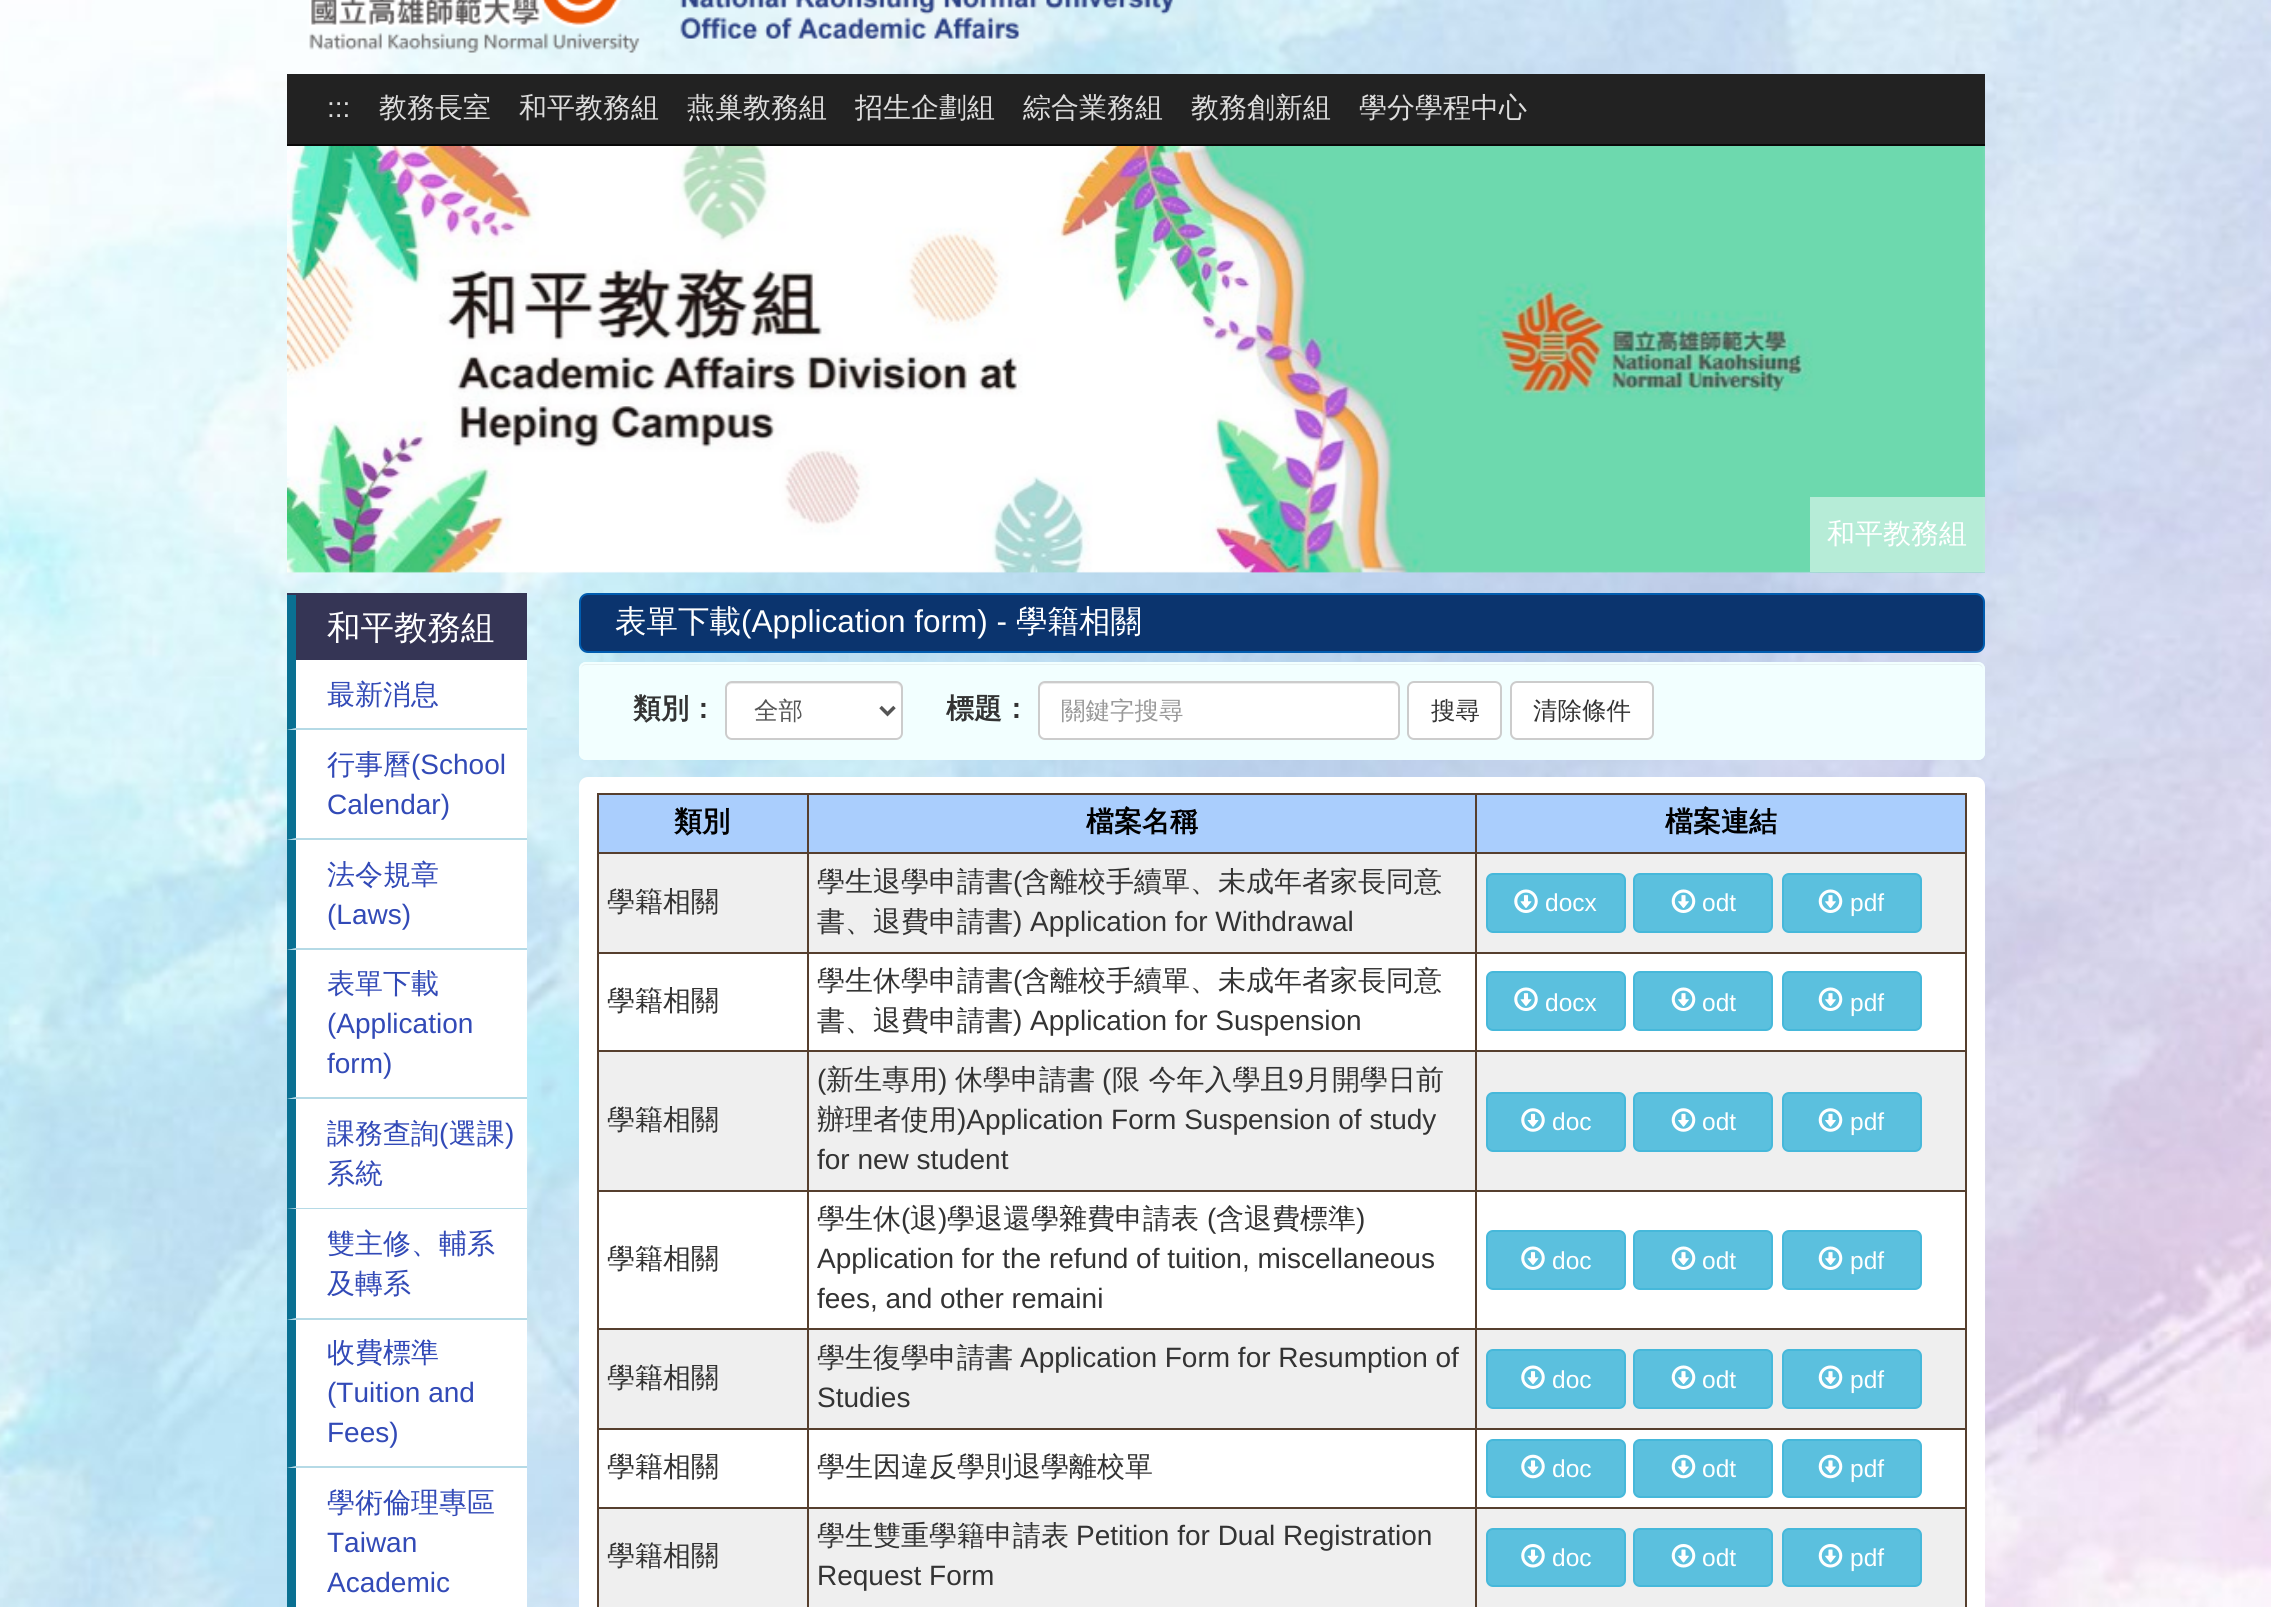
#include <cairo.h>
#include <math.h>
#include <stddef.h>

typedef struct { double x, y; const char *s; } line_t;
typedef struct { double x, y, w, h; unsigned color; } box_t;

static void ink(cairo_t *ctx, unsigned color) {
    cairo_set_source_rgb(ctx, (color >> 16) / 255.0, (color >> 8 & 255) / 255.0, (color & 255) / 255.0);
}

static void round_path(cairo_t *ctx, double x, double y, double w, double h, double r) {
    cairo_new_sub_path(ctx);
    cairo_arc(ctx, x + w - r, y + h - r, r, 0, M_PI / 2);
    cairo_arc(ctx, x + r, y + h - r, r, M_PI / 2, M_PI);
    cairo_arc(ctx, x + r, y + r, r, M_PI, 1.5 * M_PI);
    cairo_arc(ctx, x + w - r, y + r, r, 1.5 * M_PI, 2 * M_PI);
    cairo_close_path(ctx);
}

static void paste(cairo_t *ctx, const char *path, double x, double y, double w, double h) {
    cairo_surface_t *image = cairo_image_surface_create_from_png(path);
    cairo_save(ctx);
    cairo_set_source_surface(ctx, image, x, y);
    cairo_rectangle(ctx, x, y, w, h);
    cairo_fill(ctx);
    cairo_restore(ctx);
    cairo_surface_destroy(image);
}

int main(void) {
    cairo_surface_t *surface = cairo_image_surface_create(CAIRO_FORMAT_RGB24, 2271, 1607);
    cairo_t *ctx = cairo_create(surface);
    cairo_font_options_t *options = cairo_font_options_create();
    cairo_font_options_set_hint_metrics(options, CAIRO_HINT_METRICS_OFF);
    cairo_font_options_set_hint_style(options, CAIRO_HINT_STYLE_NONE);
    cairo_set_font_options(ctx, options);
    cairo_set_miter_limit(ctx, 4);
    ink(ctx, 0xFFFFFF);
    cairo_paint(ctx);
    paste(ctx, "media/1.png", 0, 0, 2271, 1607);
    paste(ctx, "media/2.png", 309, 0, 864, 53);
    ink(ctx, 0x222222);
    cairo_rectangle(ctx, 287, 74, 1698, 70);
    cairo_fill(ctx);
    ink(ctx, 0x080808);
    cairo_rectangle(ctx, 287, 144, 1698, 2);
    cairo_fill(ctx);
    cairo_select_font_face(ctx, "Liberation Sans", CAIRO_FONT_SLANT_NORMAL, CAIRO_FONT_WEIGHT_NORMAL);
    cairo_set_font_size(ctx, 28);
    ink(ctx, 0xDDDDDD);
    cairo_move_to(ctx, 327, 117);
    cairo_show_text(ctx, ":::");
    cairo_select_font_face(ctx, "WenQuanYi Zen Hei Medium", CAIRO_FONT_SLANT_NORMAL, CAIRO_FONT_WEIGHT_NORMAL);
    {
        static const line_t items[] = {
            {379, 117, "教務長室"},
            {519, 117, "和平教務組"},
            {687, 117, "燕巢教務組"},
            {855, 117, "招生企劃組"},
            {1023, 117, "綜合業務組"},
            {1191, 117, "教務創新組"},
            {1359, 117, "學分學程中心"},
        };
        for (size_t i = 0; i < sizeof items / sizeof *items; i++) {
            cairo_move_to(ctx, items[i].x, items[i].y);
            cairo_show_text(ctx, items[i].s);
        }
    }
    paste(ctx, "media/3.png", 287, 146, 1698, 427);
    cairo_set_source_rgba(ctx, 1, 1, 1, 0.5);
    cairo_rectangle(ctx, 1810, 497, 175, 75);
    cairo_fill(ctx);
    ink(ctx, 0xFFFFFF);
    cairo_move_to(ctx, 1827, 543);
    cairo_show_text(ctx, "和平教務組");
    ink(ctx, 0x353555);
    cairo_rectangle(ctx, 287, 593, 240, 67);
    cairo_fill(ctx);
    ink(ctx, 0x0A7092);
    cairo_rectangle(ctx, 287, 595, 9, 65);
    cairo_fill(ctx);
    cairo_set_font_size(ctx, 33.5);
    ink(ctx, 0xFFFFFF);
    cairo_move_to(ctx, 327, 639);
    cairo_show_text(ctx, "和平教務組");
    cairo_rectangle(ctx, 287, 660, 240, 808);
    cairo_fill(ctx);
    ink(ctx, 0xB5DAE6);
    cairo_new_path(ctx);
    cairo_move_to(ctx, 527, 730);
    cairo_line_to(ctx, 287, 730);
    cairo_line_to(ctx, 296, 728);
    cairo_line_to(ctx, 527, 728);
    cairo_close_path(ctx);
    cairo_fill(ctx);
    ink(ctx, 0x0A7092);
    cairo_new_path(ctx);
    cairo_move_to(ctx, 287, 730);
    cairo_line_to(ctx, 287, 660);
    cairo_line_to(ctx, 296, 660);
    cairo_line_to(ctx, 296, 728);
    cairo_close_path(ctx);
    cairo_fill(ctx);
    cairo_set_font_size(ctx, 28);
    ink(ctx, 0x324AB7);
    cairo_move_to(ctx, 327, 704);
    cairo_show_text(ctx, "最新消息");
    ink(ctx, 0xB5DAE6);
    cairo_new_path(ctx);
    cairo_move_to(ctx, 527, 840);
    cairo_line_to(ctx, 287, 840);
    cairo_line_to(ctx, 296, 838);
    cairo_line_to(ctx, 527, 838);
    cairo_close_path(ctx);
    cairo_fill(ctx);
    ink(ctx, 0x0A7092);
    cairo_new_path(ctx);
    cairo_move_to(ctx, 287, 840);
    cairo_line_to(ctx, 287, 730);
    cairo_line_to(ctx, 296, 730);
    cairo_line_to(ctx, 296, 838);
    cairo_close_path(ctx);
    cairo_fill(ctx);
    ink(ctx, 0x324AB7);
    cairo_move_to(ctx, 327, 774);
    cairo_show_text(ctx, "行事曆");
    cairo_select_font_face(ctx, "Liberation Sans", CAIRO_FONT_SLANT_NORMAL, CAIRO_FONT_WEIGHT_NORMAL);
    cairo_move_to(ctx, 411, 774);
    cairo_show_text(ctx, "(School");
    cairo_move_to(ctx, 327, 814);
    cairo_show_text(ctx, "Calendar)");
    ink(ctx, 0xB5DAE6);
    cairo_new_path(ctx);
    cairo_move_to(ctx, 527, 950);
    cairo_line_to(ctx, 287, 950);
    cairo_line_to(ctx, 296, 948);
    cairo_line_to(ctx, 527, 948);
    cairo_close_path(ctx);
    cairo_fill(ctx);
    ink(ctx, 0x0A7092);
    cairo_new_path(ctx);
    cairo_move_to(ctx, 287, 950);
    cairo_line_to(ctx, 287, 840);
    cairo_line_to(ctx, 296, 840);
    cairo_line_to(ctx, 296, 948);
    cairo_close_path(ctx);
    cairo_fill(ctx);
    cairo_select_font_face(ctx, "WenQuanYi Zen Hei Medium", CAIRO_FONT_SLANT_NORMAL, CAIRO_FONT_WEIGHT_NORMAL);
    ink(ctx, 0x324AB7);
    cairo_move_to(ctx, 327, 884);
    cairo_show_text(ctx, "法令規章");
    cairo_select_font_face(ctx, "Liberation Sans", CAIRO_FONT_SLANT_NORMAL, CAIRO_FONT_WEIGHT_NORMAL);
    cairo_move_to(ctx, 327, 924);
    cairo_show_text(ctx, "(Laws)");
    ink(ctx, 0xB5DAE6);
    cairo_new_path(ctx);
    cairo_move_to(ctx, 527, 1099);
    cairo_line_to(ctx, 287, 1099);
    cairo_line_to(ctx, 296, 1097);
    cairo_line_to(ctx, 527, 1097);
    cairo_close_path(ctx);
    cairo_fill(ctx);
    ink(ctx, 0x0A7092);
    cairo_new_path(ctx);
    cairo_move_to(ctx, 287, 1099);
    cairo_line_to(ctx, 287, 950);
    cairo_line_to(ctx, 296, 950);
    cairo_line_to(ctx, 296, 1097);
    cairo_close_path(ctx);
    cairo_fill(ctx);
    cairo_select_font_face(ctx, "WenQuanYi Zen Hei Medium", CAIRO_FONT_SLANT_NORMAL, CAIRO_FONT_WEIGHT_NORMAL);
    ink(ctx, 0x324AB7);
    cairo_move_to(ctx, 327, 993);
    cairo_show_text(ctx, "表單下載");
    cairo_select_font_face(ctx, "Liberation Sans", CAIRO_FONT_SLANT_NORMAL, CAIRO_FONT_WEIGHT_NORMAL);
    cairo_move_to(ctx, 327, 1033);
    cairo_show_text(ctx, "(Application");
    cairo_move_to(ctx, 327, 1073);
    cairo_show_text(ctx, "form)");
    ink(ctx, 0xB5DAE6);
    cairo_new_path(ctx);
    cairo_move_to(ctx, 527, 1209);
    cairo_line_to(ctx, 287, 1209);
    cairo_line_to(ctx, 296, 1208);
    cairo_line_to(ctx, 527, 1208);
    cairo_close_path(ctx);
    cairo_fill(ctx);
    ink(ctx, 0x0A7092);
    cairo_new_path(ctx);
    cairo_move_to(ctx, 287, 1209);
    cairo_line_to(ctx, 287, 1099);
    cairo_line_to(ctx, 296, 1099);
    cairo_line_to(ctx, 296, 1208);
    cairo_close_path(ctx);
    cairo_fill(ctx);
    cairo_select_font_face(ctx, "WenQuanYi Zen Hei Medium", CAIRO_FONT_SLANT_NORMAL, CAIRO_FONT_WEIGHT_NORMAL);
    ink(ctx, 0x324AB7);
    cairo_move_to(ctx, 327, 1143);
    cairo_show_text(ctx, "課務查詢");
    cairo_select_font_face(ctx, "Liberation Sans", CAIRO_FONT_SLANT_NORMAL, CAIRO_FONT_WEIGHT_NORMAL);
    cairo_move_to(ctx, 439, 1143);
    cairo_show_text(ctx, "(");
    cairo_select_font_face(ctx, "WenQuanYi Zen Hei Medium", CAIRO_FONT_SLANT_NORMAL, CAIRO_FONT_WEIGHT_NORMAL);
    cairo_move_to(ctx, 449, 1143);
    cairo_show_text(ctx, "選課");
    cairo_select_font_face(ctx, "Liberation Sans", CAIRO_FONT_SLANT_NORMAL, CAIRO_FONT_WEIGHT_NORMAL);
    cairo_move_to(ctx, 505, 1143);
    cairo_show_text(ctx, ")");
    cairo_select_font_face(ctx, "WenQuanYi Zen Hei Medium", CAIRO_FONT_SLANT_NORMAL, CAIRO_FONT_WEIGHT_NORMAL);
    cairo_move_to(ctx, 327, 1183);
    cairo_show_text(ctx, "系統");
    ink(ctx, 0xB5DAE6);
    cairo_new_path(ctx);
    cairo_move_to(ctx, 527, 1320);
    cairo_line_to(ctx, 287, 1320);
    cairo_line_to(ctx, 296, 1318);
    cairo_line_to(ctx, 527, 1318);
    cairo_close_path(ctx);
    cairo_fill(ctx);
    ink(ctx, 0x0A7092);
    cairo_new_path(ctx);
    cairo_move_to(ctx, 287, 1320);
    cairo_line_to(ctx, 287, 1209);
    cairo_line_to(ctx, 296, 1209);
    cairo_line_to(ctx, 296, 1318);
    cairo_close_path(ctx);
    cairo_fill(ctx);
    ink(ctx, 0x324AB7);
    cairo_move_to(ctx, 327, 1253);
    cairo_show_text(ctx, "雙主修、輔系");
    cairo_move_to(ctx, 327, 1293);
    cairo_show_text(ctx, "及轉系");
    ink(ctx, 0xB5DAE6);
    cairo_new_path(ctx);
    cairo_move_to(ctx, 527, 1468);
    cairo_line_to(ctx, 287, 1468);
    cairo_line_to(ctx, 296, 1466);
    cairo_line_to(ctx, 527, 1466);
    cairo_close_path(ctx);
    cairo_fill(ctx);
    ink(ctx, 0x0A7092);
    cairo_new_path(ctx);
    cairo_move_to(ctx, 287, 1468);
    cairo_line_to(ctx, 287, 1320);
    cairo_line_to(ctx, 296, 1320);
    cairo_line_to(ctx, 296, 1466);
    cairo_close_path(ctx);
    cairo_fill(ctx);
    ink(ctx, 0x324AB7);
    cairo_move_to(ctx, 327, 1362);
    cairo_show_text(ctx, "收費標準");
    cairo_select_font_face(ctx, "Liberation Sans", CAIRO_FONT_SLANT_NORMAL, CAIRO_FONT_WEIGHT_NORMAL);
    cairo_move_to(ctx, 327, 1402);
    cairo_show_text(ctx, "(Tuition and");
    cairo_move_to(ctx, 327, 1442);
    cairo_show_text(ctx, "Fees)");
    ink(ctx, 0xFFFFFF);
    cairo_rectangle(ctx, 296, 1468, 231, 139);
    cairo_fill(ctx);
    ink(ctx, 0x0A7092);
    cairo_new_path(ctx);
    cairo_move_to(ctx, 287, 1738);
    cairo_line_to(ctx, 287, 1468);
    cairo_line_to(ctx, 296, 1468);
    cairo_line_to(ctx, 296, 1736);
    cairo_close_path(ctx);
    cairo_fill(ctx);
    cairo_select_font_face(ctx, "WenQuanYi Zen Hei Medium", CAIRO_FONT_SLANT_NORMAL, CAIRO_FONT_WEIGHT_NORMAL);
    ink(ctx, 0x324AB7);
    cairo_move_to(ctx, 327, 1512);
    cairo_show_text(ctx, "學術倫理專區");
    cairo_select_font_face(ctx, "Liberation Sans", CAIRO_FONT_SLANT_NORMAL, CAIRO_FONT_WEIGHT_NORMAL);
    cairo_move_to(ctx, 327, 1552);
    cairo_show_text(ctx, "Taiwan");
    cairo_move_to(ctx, 327, 1592);
    cairo_show_text(ctx, "Academic");
    ink(ctx, 0x0B346E);
    round_path(ctx, 580, 594, 1404, 58, 8);
    cairo_fill_preserve(ctx);
    ink(ctx, 0x005CAF);
    cairo_stroke(ctx);
    cairo_select_font_face(ctx, "WenQuanYi Zen Hei Medium", CAIRO_FONT_SLANT_NORMAL, CAIRO_FONT_WEIGHT_NORMAL);
    cairo_set_font_size(ctx, 31.5);
    ink(ctx, 0xFFFFFF);
    cairo_move_to(ctx, 615, 632);
    cairo_show_text(ctx, "表單下載");
    cairo_select_font_face(ctx, "Liberation Sans", CAIRO_FONT_SLANT_NORMAL, CAIRO_FONT_WEIGHT_NORMAL);
    cairo_move_to(ctx, 741, 632);
    cairo_show_text(ctx, "(Application form) -");
    cairo_select_font_face(ctx, "WenQuanYi Zen Hei Medium", CAIRO_FONT_SLANT_NORMAL, CAIRO_FONT_WEIGHT_NORMAL);
    cairo_move_to(ctx, 1016, 632);
    cairo_show_text(ctx, "學籍相關");
    ink(ctx, 0xF2FFFF);
    round_path(ctx, 579, 662, 1406, 98, 7);
    cairo_fill(ctx);
    ink(ctx, 0xE6F2F2);
    cairo_new_path(ctx);
    cairo_move_to(ctx, 586, 665);
    cairo_line_to(ctx, 1978, 665);
    cairo_curve_to(ctx, 1980, 665, 1983, 667, 1983, 670);
    cairo_curve_to(ctx, 1983, 667, 1982, 663, 1978, 663);
    cairo_line_to(ctx, 586, 663);
    cairo_curve_to(ctx, 582, 663, 581, 667, 581, 670);
    cairo_curve_to(ctx, 581, 667, 583, 665, 586, 665);
    cairo_close_path(ctx);
    cairo_fill(ctx);
    round_path(ctx, 580, 663, 1404, 96, 6);
    ink(ctx, 0xF2FFFF);
    cairo_stroke(ctx);
    cairo_select_font_face(ctx, "WenQuanYi Zen Hei", CAIRO_FONT_SLANT_NORMAL, CAIRO_FONT_WEIGHT_BOLD);
    cairo_set_font_size(ctx, 28);
    ink(ctx, 0x333333);
    cairo_move_to(ctx, 633, 718);
    cairo_show_text(ctx, "類別：");
    ink(ctx, 0xFFFFFF);
    round_path(ctx, 725, 681, 178, 59, 7);
    cairo_fill(ctx);
    ink(ctx, 0xECECEC);
    cairo_new_path(ctx);
    cairo_move_to(ctx, 732, 684);
    cairo_line_to(ctx, 896, 684);
    cairo_curve_to(ctx, 899, 684, 901, 687, 901, 690);
    cairo_line_to(ctx, 901, 688);
    cairo_curve_to(ctx, 901, 685, 899, 683, 896, 683);
    cairo_line_to(ctx, 731, 683);
    cairo_curve_to(ctx, 728, 683, 726, 685, 726, 688);
    cairo_line_to(ctx, 726, 690);
    cairo_curve_to(ctx, 726, 687, 729, 684, 732, 684);
    cairo_close_path(ctx);
    cairo_fill(ctx);
    round_path(ctx, 726, 682, 176, 57, 6);
    ink(ctx, 0xCCCCCC);
    cairo_stroke(ctx);
    cairo_new_path(ctx);
    cairo_move_to(ctx, 880.5, 707);
    cairo_line_to(ctx, 887.5, 714);
    cairo_line_to(ctx, 894.5, 707);
    ink(ctx, 0x555555);
    cairo_set_line_width(ctx, 3.5);
    cairo_stroke(ctx);
    cairo_select_font_face(ctx, "WenQuanYi Zen Hei Medium", CAIRO_FONT_SLANT_NORMAL, CAIRO_FONT_WEIGHT_NORMAL);
    cairo_set_font_size(ctx, 24.5);
    cairo_move_to(ctx, 754, 719);
    cairo_show_text(ctx, "全部");
    cairo_select_font_face(ctx, "WenQuanYi Zen Hei", CAIRO_FONT_SLANT_NORMAL, CAIRO_FONT_WEIGHT_BOLD);
    cairo_set_font_size(ctx, 28);
    ink(ctx, 0x333333);
    cairo_move_to(ctx, 946, 718);
    cairo_show_text(ctx, "標題：");
    ink(ctx, 0xFFFFFF);
    round_path(ctx, 1038, 681, 362, 59, 7);
    cairo_fill(ctx);
    ink(ctx, 0xECECEC);
    cairo_new_path(ctx);
    cairo_move_to(ctx, 1045, 684);
    cairo_line_to(ctx, 1393, 684);
    cairo_curve_to(ctx, 1396, 684, 1398, 687, 1398, 690);
    cairo_curve_to(ctx, 1398, 687, 1397, 683, 1393, 683);
    cairo_line_to(ctx, 1045, 683);
    cairo_curve_to(ctx, 1041, 683, 1040, 687, 1040, 690);
    cairo_curve_to(ctx, 1040, 687, 1042, 684, 1045, 684);
    cairo_close_path(ctx);
    cairo_fill(ctx);
    round_path(ctx, 1039, 682, 360, 57, 6);
    ink(ctx, 0xCCCCCC);
    cairo_set_line_width(ctx, 2);
    cairo_stroke(ctx);
    cairo_select_font_face(ctx, "WenQuanYi Zen Hei Medium", CAIRO_FONT_SLANT_NORMAL, CAIRO_FONT_WEIGHT_NORMAL);
    cairo_set_font_size(ctx, 24.5);
    ink(ctx, 0x999999);
    cairo_move_to(ctx, 1061, 719);
    cairo_show_text(ctx, "關鍵字搜尋");
    ink(ctx, 0xFFFFFF);
    round_path(ctx, 1408, 682, 93, 57, 6);
    cairo_fill_preserve(ctx);
    ink(ctx, 0xCCCCCC);
    cairo_stroke(ctx);
    ink(ctx, 0x333333);
    cairo_move_to(ctx, 1431, 719);
    cairo_show_text(ctx, "搜尋");
    ink(ctx, 0xFFFFFF);
    round_path(ctx, 1511, 682, 142, 57, 6);
    cairo_fill_preserve(ctx);
    ink(ctx, 0xCCCCCC);
    cairo_stroke(ctx);
    ink(ctx, 0x333333);
    cairo_move_to(ctx, 1533, 719);
    cairo_show_text(ctx, "清除條件");
    ink(ctx, 0xFFFFFF);
    round_path(ctx, 579, 777, 1406, 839, 9);
    cairo_fill(ctx);
    {
        static const box_t items[] = {
            {599, 795, 1366, 57, 0xAACEFD},
            {1475, 793, 492, 2, 0x563F2E},
            {1475, 852, 492, 2, 0x563F2E},
            {1475, 952, 492, 2, 0x563F2E},
            {1475, 1050, 492, 2, 0x563F2E},
            {1475, 1190, 492, 2, 0x563F2E},
            {1475, 1328, 492, 2, 0x563F2E},
            {1475, 1428, 492, 2, 0x563F2E},
            {1475, 1507, 492, 2, 0x563F2E},
            {1475, 1507, 2, 100, 0x563F2E},
            {807, 1507, 670, 2, 0x563F2E},
            {1475, 1428, 2, 81, 0x563F2E},
            {807, 1428, 670, 2, 0x563F2E},
            {1475, 1328, 2, 102, 0x563F2E},
            {807, 1328, 670, 2, 0x563F2E},
            {1475, 1190, 2, 140, 0x563F2E},
            {807, 1190, 670, 2, 0x563F2E},
            {1475, 1050, 2, 142, 0x563F2E},
            {807, 1050, 670, 2, 0x563F2E},
            {1475, 952, 2, 100, 0x563F2E},
            {807, 952, 670, 2, 0x563F2E},
            {1475, 852, 2, 102, 0x563F2E},
            {807, 852, 670, 2, 0x563F2E},
            {1475, 793, 2, 61, 0x563F2E},
            {807, 793, 670, 2, 0x563F2E},
            {807, 1507, 2, 100, 0x563F2E},
            {597, 1507, 212, 2, 0x563F2E},
            {807, 1428, 2, 81, 0x563F2E},
            {597, 1428, 212, 2, 0x563F2E},
            {807, 1328, 2, 102, 0x563F2E},
            {597, 1328, 212, 2, 0x563F2E},
            {807, 1190, 2, 140, 0x563F2E},
            {597, 1190, 212, 2, 0x563F2E},
            {807, 1050, 2, 142, 0x563F2E},
            {597, 1050, 212, 2, 0x563F2E},
            {807, 952, 2, 100, 0x563F2E},
            {597, 952, 212, 2, 0x563F2E},
            {807, 852, 2, 102, 0x563F2E},
            {597, 852, 212, 2, 0x563F2E},
            {807, 793, 2, 61, 0x563F2E},
            {597, 793, 212, 2, 0x563F2E},
            {597, 1507, 2, 100, 0x563F2E},
            {597, 1428, 2, 81, 0x563F2E},
            {597, 1328, 2, 102, 0x563F2E},
            {597, 1190, 2, 140, 0x563F2E},
            {597, 1050, 2, 142, 0x563F2E},
            {597, 952, 2, 100, 0x563F2E},
            {597, 852, 2, 102, 0x563F2E},
            {597, 793, 2, 61, 0x563F2E},
        };
        for (size_t i = 0; i < sizeof items / sizeof *items; i++) {
            ink(ctx, items[i].color);
            cairo_rectangle(ctx, items[i].x, items[i].y, items[i].w, items[i].h);
            cairo_fill(ctx);
        }
    }
    cairo_select_font_face(ctx, "WenQuanYi Zen Hei", CAIRO_FONT_SLANT_NORMAL, CAIRO_FONT_WEIGHT_BOLD);
    cairo_set_font_size(ctx, 28);
    ink(ctx, 0x000000);
    cairo_move_to(ctx, 674, 831);
    cairo_show_text(ctx, "類別");
    cairo_move_to(ctx, 1086, 831);
    cairo_show_text(ctx, "檔案名稱");
    {
        static const box_t items[] = {
            {1965, 1507, 2, 100, 0x563F2E},
            {1965, 1428, 2, 81, 0x563F2E},
            {1965, 1328, 2, 102, 0x563F2E},
            {1965, 1190, 2, 140, 0x563F2E},
            {1965, 1050, 2, 142, 0x563F2E},
            {1965, 952, 2, 100, 0x563F2E},
            {1965, 852, 2, 102, 0x563F2E},
            {1965, 793, 2, 61, 0x563F2E},
        };
        for (size_t i = 0; i < sizeof items / sizeof *items; i++) {
            ink(ctx, items[i].color);
            cairo_rectangle(ctx, items[i].x, items[i].y, items[i].w, items[i].h);
            cairo_fill(ctx);
        }
    }
    ink(ctx, 0x000000);
    cairo_move_to(ctx, 1665, 831);
    cairo_show_text(ctx, "檔案連結");
    ink(ctx, 0xEFEFEF);
    cairo_rectangle(ctx, 599, 854, 208, 98);
    cairo_fill(ctx);
    cairo_select_font_face(ctx, "WenQuanYi Zen Hei Medium", CAIRO_FONT_SLANT_NORMAL, CAIRO_FONT_WEIGHT_NORMAL);
    ink(ctx, 0x333333);
    cairo_move_to(ctx, 607, 911);
    cairo_show_text(ctx, "學籍相關");
    ink(ctx, 0xEFEFEF);
    cairo_rectangle(ctx, 809, 854, 666, 98);
    cairo_fill(ctx);
    ink(ctx, 0x333333);
    cairo_move_to(ctx, 817, 891);
    cairo_show_text(ctx, "學生退學申請書");
    cairo_select_font_face(ctx, "Liberation Sans", CAIRO_FONT_SLANT_NORMAL, CAIRO_FONT_WEIGHT_NORMAL);
    cairo_move_to(ctx, 1013, 891);
    cairo_show_text(ctx, "(");
    cairo_select_font_face(ctx, "WenQuanYi Zen Hei Medium", CAIRO_FONT_SLANT_NORMAL, CAIRO_FONT_WEIGHT_NORMAL);
    cairo_move_to(ctx, 1022, 891);
    cairo_show_text(ctx, "含離校手續單、未成年者家長同意");
    cairo_move_to(ctx, 817, 931);
    cairo_show_text(ctx, "書、退費申請書");
    cairo_select_font_face(ctx, "Liberation Sans", CAIRO_FONT_SLANT_NORMAL, CAIRO_FONT_WEIGHT_NORMAL);
    cairo_move_to(ctx, 1013, 931);
    cairo_show_text(ctx, ") Application for Withdrawal");
    ink(ctx, 0xEFEFEF);
    cairo_rectangle(ctx, 1477, 854, 488, 98);
    cairo_fill(ctx);
    ink(ctx, 0x5BC0DE);
    round_path(ctx, 1487, 874, 138, 58, 6);
    cairo_fill_preserve(ctx);
    ink(ctx, 0x46B8DA);
    cairo_stroke(ctx);
    paste(ctx, "media/4.png", 1514, 889, 24, 24);
    cairo_set_font_size(ctx, 24.5);
    ink(ctx, 0xFFFFFF);
    cairo_move_to(ctx, 1545, 911);
    cairo_show_text(ctx, "docx");
    ink(ctx, 0x5BC0DE);
    round_path(ctx, 1634, 874, 138, 58, 6);
    cairo_fill_preserve(ctx);
    ink(ctx, 0x46B8DA);
    cairo_stroke(ctx);
    paste(ctx, "media/5.png", 1671, 889, 25, 24);
    ink(ctx, 0xFFFFFF);
    cairo_move_to(ctx, 1702, 911);
    cairo_show_text(ctx, "odt");
    ink(ctx, 0x5BC0DE);
    round_path(ctx, 1783, 874, 138, 58, 6);
    cairo_fill_preserve(ctx);
    ink(ctx, 0x46B8DA);
    cairo_stroke(ctx);
    paste(ctx, "media/5.png", 1818, 889, 25, 24);
    ink(ctx, 0xFFFFFF);
    cairo_move_to(ctx, 1850, 911);
    cairo_show_text(ctx, "pdf");
    cairo_select_font_face(ctx, "WenQuanYi Zen Hei Medium", CAIRO_FONT_SLANT_NORMAL, CAIRO_FONT_WEIGHT_NORMAL);
    cairo_set_font_size(ctx, 28);
    ink(ctx, 0x333333);
    cairo_move_to(ctx, 607, 1010);
    cairo_show_text(ctx, "學籍相關");
    cairo_move_to(ctx, 817, 990);
    cairo_show_text(ctx, "學生休學申請書");
    cairo_select_font_face(ctx, "Liberation Sans", CAIRO_FONT_SLANT_NORMAL, CAIRO_FONT_WEIGHT_NORMAL);
    cairo_move_to(ctx, 1013, 990);
    cairo_show_text(ctx, "(");
    cairo_select_font_face(ctx, "WenQuanYi Zen Hei Medium", CAIRO_FONT_SLANT_NORMAL, CAIRO_FONT_WEIGHT_NORMAL);
    cairo_move_to(ctx, 1022, 990);
    cairo_show_text(ctx, "含離校手續單、未成年者家長同意");
    cairo_move_to(ctx, 817, 1030);
    cairo_show_text(ctx, "書、退費申請書");
    cairo_select_font_face(ctx, "Liberation Sans", CAIRO_FONT_SLANT_NORMAL, CAIRO_FONT_WEIGHT_NORMAL);
    cairo_move_to(ctx, 1013, 1030);
    cairo_show_text(ctx, ") Application for Suspension");
    ink(ctx, 0x5BC0DE);
    round_path(ctx, 1487, 972, 138, 58, 6);
    cairo_fill_preserve(ctx);
    ink(ctx, 0x46B8DA);
    cairo_stroke(ctx);
    paste(ctx, "media/4.png", 1514, 987, 24, 24);
    cairo_set_font_size(ctx, 24.5);
    ink(ctx, 0xFFFFFF);
    cairo_move_to(ctx, 1545, 1011);
    cairo_show_text(ctx, "docx");
    ink(ctx, 0x5BC0DE);
    round_path(ctx, 1634, 972, 138, 58, 6);
    cairo_fill_preserve(ctx);
    ink(ctx, 0x46B8DA);
    cairo_stroke(ctx);
    paste(ctx, "media/5.png", 1671, 987, 25, 24);
    ink(ctx, 0xFFFFFF);
    cairo_move_to(ctx, 1702, 1011);
    cairo_show_text(ctx, "odt");
    ink(ctx, 0x5BC0DE);
    round_path(ctx, 1783, 972, 138, 58, 6);
    cairo_fill_preserve(ctx);
    ink(ctx, 0x46B8DA);
    cairo_stroke(ctx);
    paste(ctx, "media/5.png", 1818, 987, 25, 24);
    ink(ctx, 0xFFFFFF);
    cairo_move_to(ctx, 1850, 1011);
    cairo_show_text(ctx, "pdf");
    ink(ctx, 0xEFEFEF);
    cairo_rectangle(ctx, 599, 1052, 208, 138);
    cairo_fill(ctx);
    cairo_select_font_face(ctx, "WenQuanYi Zen Hei Medium", CAIRO_FONT_SLANT_NORMAL, CAIRO_FONT_WEIGHT_NORMAL);
    cairo_set_font_size(ctx, 28);
    ink(ctx, 0x333333);
    cairo_move_to(ctx, 607, 1129);
    cairo_show_text(ctx, "學籍相關");
    ink(ctx, 0xEFEFEF);
    cairo_rectangle(ctx, 809, 1052, 666, 138);
    cairo_fill(ctx);
    cairo_select_font_face(ctx, "Liberation Sans", CAIRO_FONT_SLANT_NORMAL, CAIRO_FONT_WEIGHT_NORMAL);
    ink(ctx, 0x333333);
    cairo_move_to(ctx, 817, 1089);
    cairo_show_text(ctx, "(");
    cairo_select_font_face(ctx, "WenQuanYi Zen Hei Medium", CAIRO_FONT_SLANT_NORMAL, CAIRO_FONT_WEIGHT_NORMAL);
    cairo_move_to(ctx, 826, 1089);
    cairo_show_text(ctx, "新生專用");
    cairo_select_font_face(ctx, "Liberation Sans", CAIRO_FONT_SLANT_NORMAL, CAIRO_FONT_WEIGHT_NORMAL);
    cairo_move_to(ctx, 938, 1089);
    cairo_show_text(ctx, ")");
    cairo_select_font_face(ctx, "WenQuanYi Zen Hei Medium", CAIRO_FONT_SLANT_NORMAL, CAIRO_FONT_WEIGHT_NORMAL);
    cairo_move_to(ctx, 955, 1089);
    cairo_show_text(ctx, "休學申請書");
    cairo_select_font_face(ctx, "Liberation Sans", CAIRO_FONT_SLANT_NORMAL, CAIRO_FONT_WEIGHT_NORMAL);
    cairo_move_to(ctx, 1102, 1089);
    cairo_show_text(ctx, "(");
    cairo_select_font_face(ctx, "WenQuanYi Zen Hei Medium", CAIRO_FONT_SLANT_NORMAL, CAIRO_FONT_WEIGHT_NORMAL);
    cairo_move_to(ctx, 1112, 1089);
    cairo_show_text(ctx, "限 今年入學且");
    cairo_select_font_face(ctx, "Liberation Sans", CAIRO_FONT_SLANT_NORMAL, CAIRO_FONT_WEIGHT_NORMAL);
    cairo_move_to(ctx, 1288, 1089);
    cairo_show_text(ctx, "9");
    cairo_select_font_face(ctx, "WenQuanYi Zen Hei Medium", CAIRO_FONT_SLANT_NORMAL, CAIRO_FONT_WEIGHT_NORMAL);
    cairo_move_to(ctx, 1304, 1089);
    cairo_show_text(ctx, "月開學日前");
    cairo_move_to(ctx, 817, 1129);
    cairo_show_text(ctx, "辦理者使用");
    cairo_select_font_face(ctx, "Liberation Sans", CAIRO_FONT_SLANT_NORMAL, CAIRO_FONT_WEIGHT_NORMAL);
    cairo_move_to(ctx, 957, 1129);
    cairo_show_text(ctx, ")Application Form Suspension of study");
    cairo_move_to(ctx, 817, 1169);
    cairo_show_text(ctx, "for new student");
    ink(ctx, 0xEFEFEF);
    cairo_rectangle(ctx, 1477, 1052, 488, 138);
    cairo_fill(ctx);
    ink(ctx, 0x5BC0DE);
    round_path(ctx, 1487, 1093, 138, 58, 6);
    cairo_fill_preserve(ctx);
    ink(ctx, 0x46B8DA);
    cairo_stroke(ctx);
    paste(ctx, "media/6.png", 1521, 1108, 24, 24);
    cairo_set_font_size(ctx, 24.5);
    ink(ctx, 0xFFFFFF);
    cairo_move_to(ctx, 1552, 1130);
    cairo_show_text(ctx, "doc");
    ink(ctx, 0x5BC0DE);
    round_path(ctx, 1634, 1093, 138, 58, 6);
    cairo_fill_preserve(ctx);
    ink(ctx, 0x46B8DA);
    cairo_stroke(ctx);
    paste(ctx, "media/7.png", 1671, 1108, 25, 24);
    ink(ctx, 0xFFFFFF);
    cairo_move_to(ctx, 1702, 1130);
    cairo_show_text(ctx, "odt");
    ink(ctx, 0x5BC0DE);
    round_path(ctx, 1783, 1093, 138, 58, 6);
    cairo_fill_preserve(ctx);
    ink(ctx, 0x46B8DA);
    cairo_stroke(ctx);
    paste(ctx, "media/7.png", 1818, 1108, 25, 24);
    ink(ctx, 0xFFFFFF);
    cairo_move_to(ctx, 1850, 1130);
    cairo_show_text(ctx, "pdf");
    cairo_select_font_face(ctx, "WenQuanYi Zen Hei Medium", CAIRO_FONT_SLANT_NORMAL, CAIRO_FONT_WEIGHT_NORMAL);
    cairo_set_font_size(ctx, 28);
    ink(ctx, 0x333333);
    cairo_move_to(ctx, 607, 1268);
    cairo_show_text(ctx, "學籍相關");
    cairo_move_to(ctx, 817, 1228);
    cairo_show_text(ctx, "學生休");
    cairo_select_font_face(ctx, "Liberation Sans", CAIRO_FONT_SLANT_NORMAL, CAIRO_FONT_WEIGHT_NORMAL);
    cairo_move_to(ctx, 901, 1228);
    cairo_show_text(ctx, "(");
    cairo_select_font_face(ctx, "WenQuanYi Zen Hei Medium", CAIRO_FONT_SLANT_NORMAL, CAIRO_FONT_WEIGHT_NORMAL);
    cairo_move_to(ctx, 910, 1228);
    cairo_show_text(ctx, "退");
    cairo_select_font_face(ctx, "Liberation Sans", CAIRO_FONT_SLANT_NORMAL, CAIRO_FONT_WEIGHT_NORMAL);
    cairo_move_to(ctx, 938, 1228);
    cairo_show_text(ctx, ")");
    cairo_select_font_face(ctx, "WenQuanYi Zen Hei Medium", CAIRO_FONT_SLANT_NORMAL, CAIRO_FONT_WEIGHT_NORMAL);
    cairo_move_to(ctx, 947, 1228);
    cairo_show_text(ctx, "學退還學雜費申請表");
    cairo_select_font_face(ctx, "Liberation Sans", CAIRO_FONT_SLANT_NORMAL, CAIRO_FONT_WEIGHT_NORMAL);
    cairo_move_to(ctx, 1207, 1228);
    cairo_show_text(ctx, "(");
    cairo_select_font_face(ctx, "WenQuanYi Zen Hei Medium", CAIRO_FONT_SLANT_NORMAL, CAIRO_FONT_WEIGHT_NORMAL);
    cairo_move_to(ctx, 1216, 1228);
    cairo_show_text(ctx, "含退費標準");
    cairo_select_font_face(ctx, "Liberation Sans", CAIRO_FONT_SLANT_NORMAL, CAIRO_FONT_WEIGHT_NORMAL);
    {
        static const line_t items[] = {
            {1356, 1228, ")"},
            {817, 1268, "Application for the refund of tuition, miscellaneous"},
            {817, 1308, "fees, and other remaini"},
        };
        for (size_t i = 0; i < sizeof items / sizeof *items; i++) {
            cairo_move_to(ctx, items[i].x, items[i].y);
            cairo_show_text(ctx, items[i].s);
        }
    }
    ink(ctx, 0x5BC0DE);
    round_path(ctx, 1487, 1231, 138, 58, 6);
    cairo_fill_preserve(ctx);
    ink(ctx, 0x46B8DA);
    cairo_stroke(ctx);
    paste(ctx, "media/4.png", 1521, 1246, 24, 24);
    cairo_set_font_size(ctx, 24.5);
    ink(ctx, 0xFFFFFF);
    cairo_move_to(ctx, 1552, 1269);
    cairo_show_text(ctx, "doc");
    ink(ctx, 0x5BC0DE);
    round_path(ctx, 1634, 1231, 138, 58, 6);
    cairo_fill_preserve(ctx);
    ink(ctx, 0x46B8DA);
    cairo_stroke(ctx);
    paste(ctx, "media/5.png", 1671, 1246, 25, 24);
    ink(ctx, 0xFFFFFF);
    cairo_move_to(ctx, 1702, 1269);
    cairo_show_text(ctx, "odt");
    ink(ctx, 0x5BC0DE);
    round_path(ctx, 1783, 1231, 138, 58, 6);
    cairo_fill_preserve(ctx);
    ink(ctx, 0x46B8DA);
    cairo_stroke(ctx);
    paste(ctx, "media/5.png", 1818, 1246, 25, 24);
    ink(ctx, 0xFFFFFF);
    cairo_move_to(ctx, 1850, 1269);
    cairo_show_text(ctx, "pdf");
    ink(ctx, 0xEFEFEF);
    cairo_rectangle(ctx, 599, 1330, 208, 98);
    cairo_fill(ctx);
    cairo_select_font_face(ctx, "WenQuanYi Zen Hei Medium", CAIRO_FONT_SLANT_NORMAL, CAIRO_FONT_WEIGHT_NORMAL);
    cairo_set_font_size(ctx, 28);
    ink(ctx, 0x333333);
    cairo_move_to(ctx, 607, 1387);
    cairo_show_text(ctx, "學籍相關");
    ink(ctx, 0xEFEFEF);
    cairo_rectangle(ctx, 809, 1330, 666, 98);
    cairo_fill(ctx);
    ink(ctx, 0x333333);
    cairo_move_to(ctx, 817, 1367);
    cairo_show_text(ctx, "學生復學申請書");
    cairo_select_font_face(ctx, "Liberation Sans", CAIRO_FONT_SLANT_NORMAL, CAIRO_FONT_WEIGHT_NORMAL);
    cairo_move_to(ctx, 1020, 1367);
    cairo_show_text(ctx, "Application Form for Resumption of");
    cairo_move_to(ctx, 817, 1407);
    cairo_show_text(ctx, "Studies");
    ink(ctx, 0xEFEFEF);
    cairo_rectangle(ctx, 1477, 1330, 488, 98);
    cairo_fill(ctx);
    ink(ctx, 0x5BC0DE);
    round_path(ctx, 1487, 1350, 138, 58, 6);
    cairo_fill_preserve(ctx);
    ink(ctx, 0x46B8DA);
    cairo_stroke(ctx);
    paste(ctx, "media/4.png", 1521, 1365, 24, 24);
    cairo_set_font_size(ctx, 24.5);
    ink(ctx, 0xFFFFFF);
    cairo_move_to(ctx, 1552, 1388);
    cairo_show_text(ctx, "doc");
    ink(ctx, 0x5BC0DE);
    round_path(ctx, 1634, 1350, 138, 58, 6);
    cairo_fill_preserve(ctx);
    ink(ctx, 0x46B8DA);
    cairo_stroke(ctx);
    paste(ctx, "media/5.png", 1671, 1365, 25, 24);
    ink(ctx, 0xFFFFFF);
    cairo_move_to(ctx, 1702, 1388);
    cairo_show_text(ctx, "odt");
    ink(ctx, 0x5BC0DE);
    round_path(ctx, 1783, 1350, 138, 58, 6);
    cairo_fill_preserve(ctx);
    ink(ctx, 0x46B8DA);
    cairo_stroke(ctx);
    paste(ctx, "media/5.png", 1818, 1365, 25, 24);
    ink(ctx, 0xFFFFFF);
    cairo_move_to(ctx, 1850, 1388);
    cairo_show_text(ctx, "pdf");
    cairo_select_font_face(ctx, "WenQuanYi Zen Hei Medium", CAIRO_FONT_SLANT_NORMAL, CAIRO_FONT_WEIGHT_NORMAL);
    cairo_set_font_size(ctx, 28);
    ink(ctx, 0x333333);
    cairo_move_to(ctx, 607, 1476);
    cairo_show_text(ctx, "學籍相關");
    cairo_move_to(ctx, 817, 1476);
    cairo_show_text(ctx, "學生因違反學則退學離校單");
    ink(ctx, 0x5BC0DE);
    round_path(ctx, 1487, 1440, 138, 57, 6);
    cairo_fill_preserve(ctx);
    ink(ctx, 0x46B8DA);
    cairo_stroke(ctx);
    paste(ctx, "media/8.png", 1521, 1454, 24, 25);
    cairo_select_font_face(ctx, "Liberation Sans", CAIRO_FONT_SLANT_NORMAL, CAIRO_FONT_WEIGHT_NORMAL);
    cairo_set_font_size(ctx, 24.5);
    ink(ctx, 0xFFFFFF);
    cairo_move_to(ctx, 1552, 1477);
    cairo_show_text(ctx, "doc");
    ink(ctx, 0x5BC0DE);
    round_path(ctx, 1634, 1440, 138, 57, 6);
    cairo_fill_preserve(ctx);
    ink(ctx, 0x46B8DA);
    cairo_stroke(ctx);
    paste(ctx, "media/9.png", 1671, 1454, 25, 25);
    ink(ctx, 0xFFFFFF);
    cairo_move_to(ctx, 1702, 1477);
    cairo_show_text(ctx, "odt");
    ink(ctx, 0x5BC0DE);
    round_path(ctx, 1783, 1440, 138, 57, 6);
    cairo_fill_preserve(ctx);
    ink(ctx, 0x46B8DA);
    cairo_stroke(ctx);
    paste(ctx, "media/9.png", 1818, 1454, 25, 25);
    ink(ctx, 0xFFFFFF);
    cairo_move_to(ctx, 1850, 1477);
    cairo_show_text(ctx, "pdf");
    ink(ctx, 0xEFEFEF);
    cairo_rectangle(ctx, 599, 1509, 208, 98);
    cairo_fill(ctx);
    cairo_select_font_face(ctx, "WenQuanYi Zen Hei Medium", CAIRO_FONT_SLANT_NORMAL, CAIRO_FONT_WEIGHT_NORMAL);
    cairo_set_font_size(ctx, 28);
    ink(ctx, 0x333333);
    cairo_move_to(ctx, 607, 1565);
    cairo_show_text(ctx, "學籍相關");
    ink(ctx, 0xEFEFEF);
    cairo_rectangle(ctx, 809, 1509, 666, 98);
    cairo_fill(ctx);
    ink(ctx, 0x333333);
    cairo_move_to(ctx, 817, 1545);
    cairo_show_text(ctx, "學生雙重學籍申請表");
    cairo_select_font_face(ctx, "Liberation Sans", CAIRO_FONT_SLANT_NORMAL, CAIRO_FONT_WEIGHT_NORMAL);
    cairo_move_to(ctx, 1076, 1545);
    cairo_show_text(ctx, "Petition for Dual Registration");
    cairo_move_to(ctx, 817, 1585);
    cairo_show_text(ctx, "Request Form");
    ink(ctx, 0xEFEFEF);
    cairo_rectangle(ctx, 1477, 1509, 488, 98);
    cairo_fill(ctx);
    ink(ctx, 0x5BC0DE);
    round_path(ctx, 1487, 1529, 138, 57, 6);
    cairo_fill_preserve(ctx);
    ink(ctx, 0x46B8DA);
    cairo_stroke(ctx);
    paste(ctx, "media/10.png", 1521, 1544, 24, 24);
    cairo_set_font_size(ctx, 24.5);
    ink(ctx, 0xFFFFFF);
    cairo_move_to(ctx, 1552, 1566);
    cairo_show_text(ctx, "doc");
    ink(ctx, 0x5BC0DE);
    round_path(ctx, 1634, 1529, 138, 57, 6);
    cairo_fill_preserve(ctx);
    ink(ctx, 0x46B8DA);
    cairo_stroke(ctx);
    paste(ctx, "media/11.png", 1671, 1544, 25, 24);
    ink(ctx, 0xFFFFFF);
    cairo_move_to(ctx, 1702, 1566);
    cairo_show_text(ctx, "odt");
    ink(ctx, 0x5BC0DE);
    round_path(ctx, 1783, 1529, 138, 57, 6);
    cairo_fill_preserve(ctx);
    ink(ctx, 0x46B8DA);
    cairo_stroke(ctx);
    paste(ctx, "media/11.png", 1818, 1544, 25, 24);
    ink(ctx, 0xFFFFFF);
    cairo_move_to(ctx, 1850, 1566);
    cairo_show_text(ctx, "pdf");
    cairo_surface_write_to_png(surface, "image.png");
    cairo_font_options_destroy(options);
    cairo_destroy(ctx);
    cairo_surface_destroy(surface);
    return 0;
}
